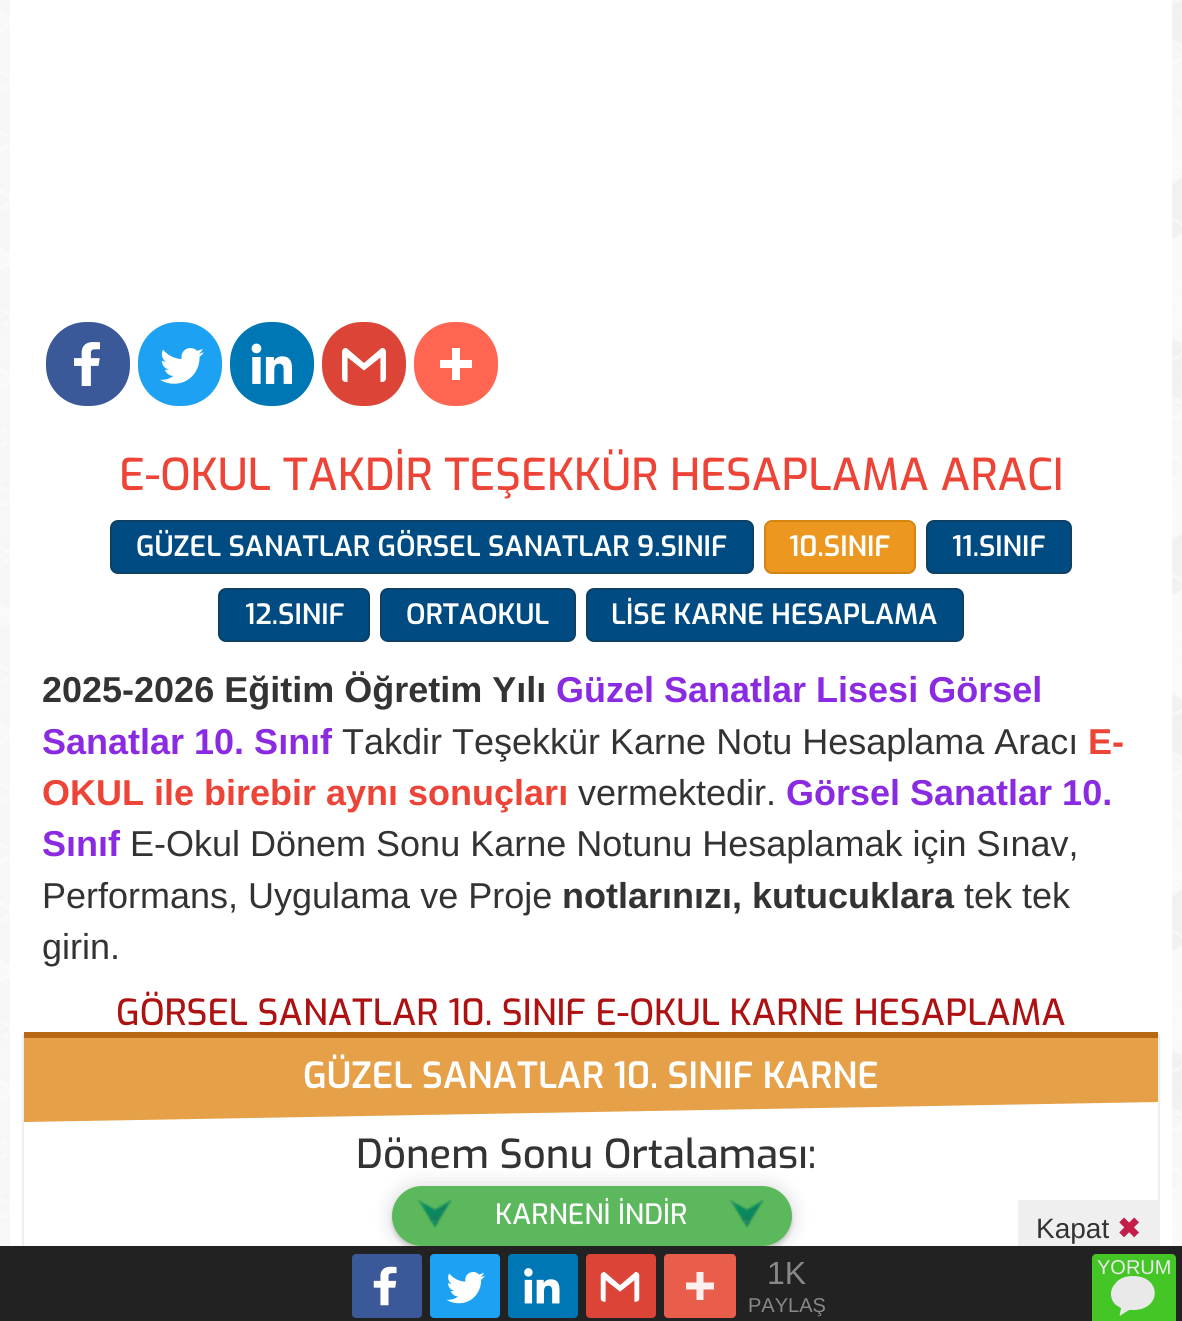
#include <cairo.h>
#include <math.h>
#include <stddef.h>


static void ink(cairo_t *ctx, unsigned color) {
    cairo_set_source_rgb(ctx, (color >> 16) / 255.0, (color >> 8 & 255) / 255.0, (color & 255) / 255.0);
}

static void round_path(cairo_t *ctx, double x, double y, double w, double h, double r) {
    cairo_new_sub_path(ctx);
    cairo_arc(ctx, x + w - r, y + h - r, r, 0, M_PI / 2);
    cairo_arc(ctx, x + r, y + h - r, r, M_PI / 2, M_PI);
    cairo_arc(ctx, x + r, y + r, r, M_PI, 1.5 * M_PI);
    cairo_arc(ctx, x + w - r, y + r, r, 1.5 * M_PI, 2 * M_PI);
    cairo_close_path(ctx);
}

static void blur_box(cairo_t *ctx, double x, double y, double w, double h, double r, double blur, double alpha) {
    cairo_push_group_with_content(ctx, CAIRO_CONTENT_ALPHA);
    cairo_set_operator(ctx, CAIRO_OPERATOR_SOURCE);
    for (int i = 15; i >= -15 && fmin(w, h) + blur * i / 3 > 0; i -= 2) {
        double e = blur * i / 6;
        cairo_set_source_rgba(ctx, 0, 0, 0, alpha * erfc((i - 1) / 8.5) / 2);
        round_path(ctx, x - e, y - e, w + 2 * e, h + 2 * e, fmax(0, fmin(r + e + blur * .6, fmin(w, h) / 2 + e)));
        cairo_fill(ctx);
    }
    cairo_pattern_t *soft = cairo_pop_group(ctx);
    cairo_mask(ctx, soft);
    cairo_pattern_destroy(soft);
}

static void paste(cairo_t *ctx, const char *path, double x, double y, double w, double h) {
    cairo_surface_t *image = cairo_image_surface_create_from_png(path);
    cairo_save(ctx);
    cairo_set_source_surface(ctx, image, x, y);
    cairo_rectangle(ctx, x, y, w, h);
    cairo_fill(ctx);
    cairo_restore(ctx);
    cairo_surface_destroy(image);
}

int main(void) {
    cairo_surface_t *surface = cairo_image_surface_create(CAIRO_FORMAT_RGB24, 1182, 1321);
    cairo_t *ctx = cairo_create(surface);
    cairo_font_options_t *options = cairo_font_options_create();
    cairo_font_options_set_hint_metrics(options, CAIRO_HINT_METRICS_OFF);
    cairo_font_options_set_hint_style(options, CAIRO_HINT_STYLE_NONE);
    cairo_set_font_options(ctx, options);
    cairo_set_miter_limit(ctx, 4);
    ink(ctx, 0xFFFFFF);
    cairo_paint(ctx);
    paste(ctx, "media/1.png", 0, 0, 1182, 1246);
    ink(ctx, 0xFFFFFF);
    cairo_rectangle(ctx, 10, 0, 1162, 1246);
    cairo_fill(ctx);
    ink(ctx, 0x3B5998);
    round_path(ctx, 46, 322, 84, 84, 40);
    cairo_fill(ctx);
    paste(ctx, "media/2.png", 74, 342, 26, 44);
    ink(ctx, 0x1DA1F2);
    round_path(ctx, 138, 322, 84, 84, 40);
    cairo_fill(ctx);
    paste(ctx, "media/3.png", 160, 348, 44, 36);
    ink(ctx, 0x0077B5);
    round_path(ctx, 230, 322, 84, 84, 40);
    cairo_fill(ctx);
    paste(ctx, "media/4.png", 251, 343, 41, 41);
    ink(ctx, 0xDB4437);
    round_path(ctx, 322, 322, 84, 84, 40);
    cairo_fill(ctx);
    paste(ctx, "media/5.png", 342, 348, 44, 34);
    ink(ctx, 0xFF6550);
    round_path(ctx, 414, 322, 84, 84, 40);
    cairo_fill(ctx);
    paste(ctx, "media/6.png", 440, 348, 32, 32);
    cairo_select_font_face(ctx, "Exo Medium", CAIRO_FONT_SLANT_NORMAL, CAIRO_FONT_WEIGHT_NORMAL);
    cairo_set_font_size(ctx, 44);
    ink(ctx, 0xEC4436);
    cairo_move_to(ctx, 119, 490);
    cairo_show_text(ctx, "E-OKUL TAKDİR TEŞEKKÜR HESAPLAMA ARACI");
    ink(ctx, 0x004B81);
    round_path(ctx, 111, 521, 642, 52, 7);
    cairo_fill_preserve(ctx);
    ink(ctx, 0x0C4065);
    cairo_stroke(ctx);
    cairo_select_font_face(ctx, "Exo SemiBold", CAIRO_FONT_SLANT_NORMAL, CAIRO_FONT_WEIGHT_NORMAL);
    cairo_set_font_size(ctx, 28);
    ink(ctx, 0xFFFFFF);
    cairo_move_to(ctx, 136, 556);
    cairo_show_text(ctx, "GÜZEL SANATLAR GÖRSEL SANATLAR 9.SINIF");
    ink(ctx, 0xEC971F);
    round_path(ctx, 765, 521, 150, 52, 7);
    cairo_fill_preserve(ctx);
    ink(ctx, 0xD58512);
    cairo_stroke(ctx);
    ink(ctx, 0xFFFFFF);
    cairo_move_to(ctx, 789, 556);
    cairo_show_text(ctx, "10.SINIF");
    ink(ctx, 0x004B81);
    round_path(ctx, 927, 521, 144, 52, 7);
    cairo_fill_preserve(ctx);
    ink(ctx, 0x0C4065);
    cairo_stroke(ctx);
    ink(ctx, 0xFFFFFF);
    cairo_move_to(ctx, 952, 556);
    cairo_show_text(ctx, "11.SINIF");
    ink(ctx, 0x004B81);
    round_path(ctx, 219, 589, 150, 52, 7);
    cairo_fill_preserve(ctx);
    ink(ctx, 0x0C4065);
    cairo_stroke(ctx);
    ink(ctx, 0xFFFFFF);
    cairo_move_to(ctx, 245, 624);
    cairo_show_text(ctx, "12.SINIF");
    ink(ctx, 0x004B81);
    round_path(ctx, 381, 589, 194, 52, 7);
    cairo_fill_preserve(ctx);
    ink(ctx, 0x0C4065);
    cairo_stroke(ctx);
    ink(ctx, 0xFFFFFF);
    cairo_move_to(ctx, 406, 624);
    cairo_show_text(ctx, "ORTAOKUL");
    ink(ctx, 0x004B81);
    round_path(ctx, 587, 589, 376, 52, 7);
    cairo_fill_preserve(ctx);
    ink(ctx, 0x0C4065);
    cairo_stroke(ctx);
    ink(ctx, 0xFFFFFF);
    cairo_move_to(ctx, 611, 624);
    cairo_show_text(ctx, "LİSE KARNE HESAPLAMA");
    cairo_select_font_face(ctx, "Liberation Sans", CAIRO_FONT_SLANT_NORMAL, CAIRO_FONT_WEIGHT_BOLD);
    cairo_set_font_size(ctx, 36);
    ink(ctx, 0x333333);
    cairo_move_to(ctx, 42, 702);
    cairo_show_text(ctx, "2025-2026 Eğitim Öğretim Yılı");
    ink(ctx, 0x8A2BE2);
    cairo_move_to(ctx, 556, 702);
    cairo_show_text(ctx, "Güzel Sanatlar Lisesi Görsel");
    cairo_move_to(ctx, 42, 754);
    cairo_show_text(ctx, "Sanatlar 10. Sınıf");
    cairo_select_font_face(ctx, "Liberation Sans", CAIRO_FONT_SLANT_NORMAL, CAIRO_FONT_WEIGHT_NORMAL);
    ink(ctx, 0x333333);
    cairo_move_to(ctx, 342, 754);
    cairo_show_text(ctx, "Takdir Teşekkür Karne Notu Hesaplama Aracı");
    cairo_select_font_face(ctx, "Liberation Sans", CAIRO_FONT_SLANT_NORMAL, CAIRO_FONT_WEIGHT_BOLD);
    ink(ctx, 0xEC4436);
    cairo_move_to(ctx, 1088, 754);
    cairo_show_text(ctx, "E-");
    cairo_move_to(ctx, 42, 805);
    cairo_show_text(ctx, "OKUL ile birebir aynı sonuçları");
    cairo_select_font_face(ctx, "Liberation Sans", CAIRO_FONT_SLANT_NORMAL, CAIRO_FONT_WEIGHT_NORMAL);
    ink(ctx, 0x333333);
    cairo_move_to(ctx, 578, 805);
    cairo_show_text(ctx, "vermektedir.");
    cairo_select_font_face(ctx, "Liberation Sans", CAIRO_FONT_SLANT_NORMAL, CAIRO_FONT_WEIGHT_BOLD);
    ink(ctx, 0x8A2BE2);
    cairo_move_to(ctx, 786, 805);
    cairo_show_text(ctx, "Görsel Sanatlar 10.");
    cairo_move_to(ctx, 42, 856);
    cairo_show_text(ctx, "Sınıf");
    cairo_select_font_face(ctx, "Liberation Sans", CAIRO_FONT_SLANT_NORMAL, CAIRO_FONT_WEIGHT_NORMAL);
    ink(ctx, 0x333333);
    cairo_move_to(ctx, 130, 856);
    cairo_show_text(ctx, "E-Okul Dönem Sonu Karne Notunu Hesaplamak için Sınav,");
    cairo_move_to(ctx, 42, 908);
    cairo_show_text(ctx, "Performans, Uygulama ve Proje");
    cairo_select_font_face(ctx, "Liberation Sans", CAIRO_FONT_SLANT_NORMAL, CAIRO_FONT_WEIGHT_BOLD);
    cairo_move_to(ctx, 562, 908);
    cairo_show_text(ctx, "notlarınızı, kutucuklara");
    cairo_select_font_face(ctx, "Liberation Sans", CAIRO_FONT_SLANT_NORMAL, CAIRO_FONT_WEIGHT_NORMAL);
    cairo_move_to(ctx, 964, 908);
    cairo_show_text(ctx, "tek tek");
    cairo_move_to(ctx, 42, 959);
    cairo_show_text(ctx, "girin.");
    cairo_select_font_face(ctx, "Exo Medium", CAIRO_FONT_SLANT_NORMAL, CAIRO_FONT_WEIGHT_NORMAL);
    ink(ctx, 0xAD1111);
    cairo_move_to(ctx, 116, 1025);
    cairo_show_text(ctx, "GÖRSEL SANATLAR 10. SINIF E-OKUL KARNE HESAPLAMA");
    cairo_rectangle(ctx, 23, 1035, 1136, 222);
    ink(ctx, 0xEFEFEF);
    cairo_stroke(ctx);
    ink(ctx, 0xE6A048);
    cairo_new_path(ctx);
    cairo_move_to(ctx, 24, 1032);
    cairo_line_to(ctx, 24, 1122);
    cairo_line_to(ctx, 1158, 1102);
    cairo_line_to(ctx, 1158, 1032);
    cairo_close_path(ctx);
    cairo_fill(ctx);
    ink(ctx, 0xB86713);
    cairo_rectangle(ctx, 24, 1032, 1134, 6);
    cairo_fill(ctx);
    cairo_select_font_face(ctx, "Exo SemiBold", CAIRO_FONT_SLANT_NORMAL, CAIRO_FONT_WEIGHT_NORMAL);
    ink(ctx, 0xFFFFFF);
    cairo_move_to(ctx, 303, 1088);
    cairo_show_text(ctx, "GÜZEL SANATLAR 10. SINIF KARNE");
    cairo_select_font_face(ctx, "Exo Medium", CAIRO_FONT_SLANT_NORMAL, CAIRO_FONT_WEIGHT_NORMAL);
    cairo_set_font_size(ctx, 40);
    ink(ctx, 0x333333);
    cairo_move_to(ctx, 356, 1168);
    cairo_show_text(ctx, "Dönem Sonu Ortalaması:");
    ink(ctx, 0x000000);
    blur_box(ctx, 392, 1190, 400, 60, 30, 2, 0.15);
    blur_box(ctx, 392, 1186, 400, 60, 30, 10, 0.15);
    ink(ctx, 0x5CB85C);
    round_path(ctx, 392, 1186, 400, 60, 30);
    cairo_fill(ctx);
    paste(ctx, "media/7.png", 417, 1200, 35, 29);
    cairo_set_font_size(ctx, 28);
    ink(ctx, 0xFFFFFF);
    cairo_move_to(ctx, 495, 1224);
    cairo_show_text(ctx, "KARNENİ İNDİR");
    paste(ctx, "media/7.png", 729, 1200, 35, 29);
    ink(ctx, 0xEFEFEF);
    cairo_rectangle(ctx, 1018, 1200, 140, 46);
    cairo_fill(ctx);
    cairo_select_font_face(ctx, "Liberation Sans", CAIRO_FONT_SLANT_NORMAL, CAIRO_FONT_WEIGHT_NORMAL);
    ink(ctx, 0x333333);
    cairo_move_to(ctx, 1036, 1238);
    cairo_show_text(ctx, "Kapat");
    cairo_select_font_face(ctx, "DejaVu Sans", CAIRO_FONT_SLANT_NORMAL, CAIRO_FONT_WEIGHT_BOLD);
    ink(ctx, 0xC51D4A);
    cairo_move_to(ctx, 1117, 1238);
    cairo_show_text(ctx, "✖");
    ink(ctx, 0x222222);
    cairo_rectangle(ctx, 0, 1246, 1182, 75);
    cairo_fill(ctx);
    ink(ctx, 0x3B5998);
    round_path(ctx, 352, 1254, 70, 64, 4);
    cairo_fill(ctx);
    paste(ctx, "media/8.png", 373, 1266, 24, 40);
    ink(ctx, 0x1DA1F2);
    round_path(ctx, 430, 1254, 70, 64, 4);
    cairo_fill(ctx);
    paste(ctx, "media/9.png", 446, 1272, 39, 32);
    ink(ctx, 0x0077B5);
    round_path(ctx, 508, 1254, 70, 64, 4);
    cairo_fill(ctx);
    paste(ctx, "media/10.png", 524, 1268, 36, 36);
    ink(ctx, 0xDB4437);
    round_path(ctx, 586, 1254, 70, 64, 4);
    cairo_fill(ctx);
    paste(ctx, "media/11.png", 600, 1272, 40, 30);
    ink(ctx, 0xE95E4B);
    round_path(ctx, 664, 1254, 72, 64, 4);
    cairo_fill(ctx);
    paste(ctx, "media/12.png", 686, 1272, 28, 28);
    cairo_select_font_face(ctx, "Liberation Sans", CAIRO_FONT_SLANT_NORMAL, CAIRO_FONT_WEIGHT_NORMAL);
    cairo_set_font_size(ctx, 32);
    ink(ctx, 0x888888);
    cairo_move_to(ctx, 767, 1284);
    cairo_show_text(ctx, "1K");
    cairo_set_font_size(ctx, 20);
    cairo_move_to(ctx, 748, 1312);
    cairo_show_text(ctx, "PAYLAŞ");
    ink(ctx, 0x44C627);
    cairo_new_path(ctx);
    cairo_move_to(ctx, 1096, 1254);
    cairo_line_to(ctx, 1172, 1254);
    cairo_curve_to(ctx, 1174, 1254, 1176, 1256, 1176, 1258);
    cairo_line_to(ctx, 1176, 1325);
    cairo_line_to(ctx, 1092, 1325);
    cairo_line_to(ctx, 1092, 1258);
    cairo_curve_to(ctx, 1092, 1256, 1094, 1254, 1096, 1254);
    cairo_close_path(ctx);
    cairo_fill(ctx);
    ink(ctx, 0xE9E9E9);
    cairo_set_fill_rule(ctx, CAIRO_FILL_RULE_EVEN_ODD);
    cairo_new_path(ctx);
    cairo_move_to(ctx, 1133, 1310);
    cairo_line_to(ctx, 1129, 1310);
    cairo_line_to(ctx, 1121, 1315);
    cairo_line_to(ctx, 1120, 1316);
    cairo_curve_to(ctx, 1119, 1315, 1121, 1310, 1121, 1308);
    cairo_line_to(ctx, 1116, 1305);
    cairo_curve_to(ctx, 1110, 1300, 1109, 1290, 1115, 1284);
    cairo_curve_to(ctx, 1119, 1278, 1126, 1276, 1133, 1276);
    cairo_curve_to(ctx, 1162, 1276, 1162, 1310, 1133, 1310);
    cairo_fill(ctx);
    cairo_move_to(ctx, 1097, 1274);
    cairo_show_text(ctx, "YORUM");
    cairo_surface_write_to_png(surface, "image.png");
    cairo_font_options_destroy(options);
    cairo_destroy(ctx);
    cairo_surface_destroy(surface);
    return 0;
}
